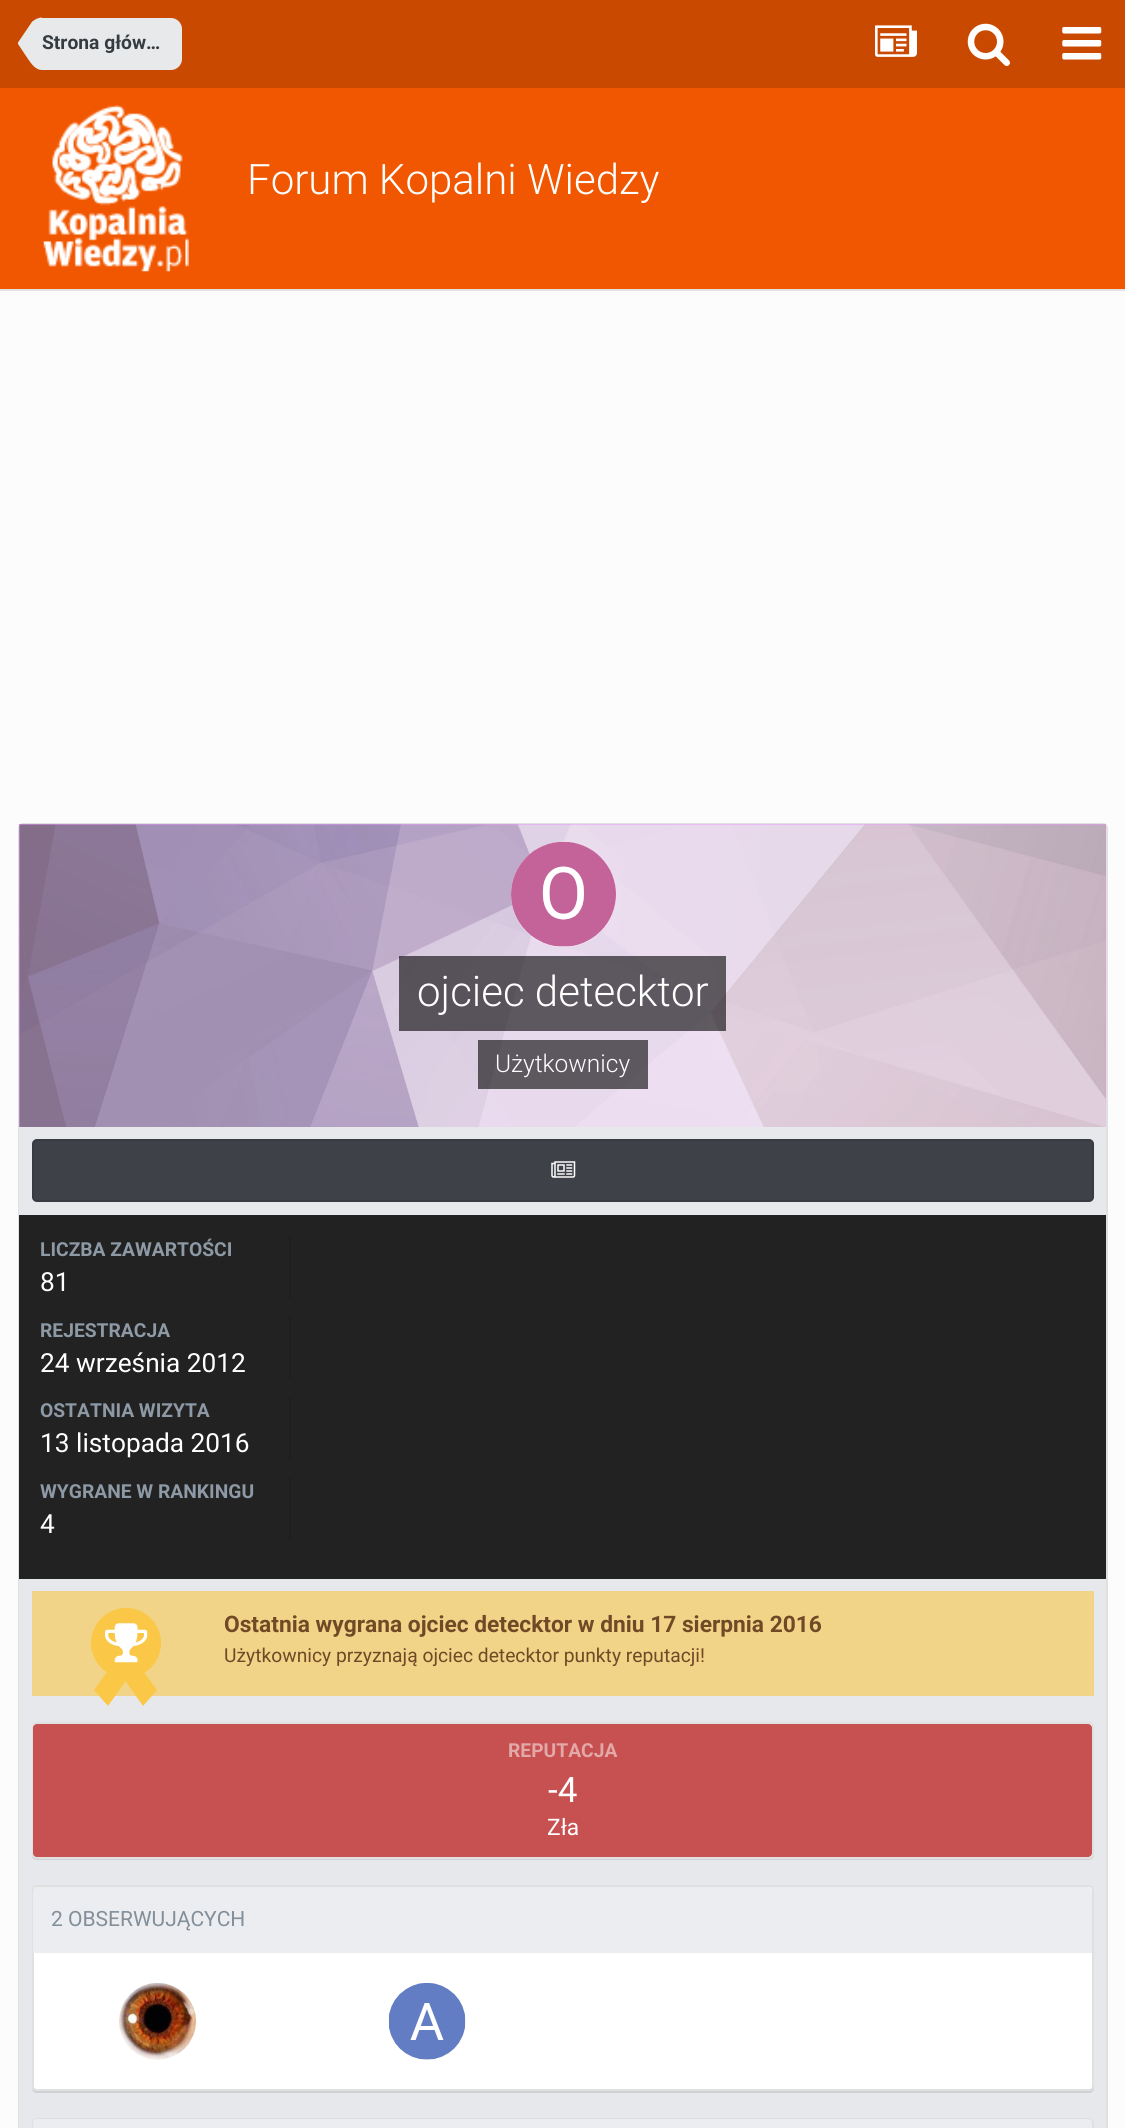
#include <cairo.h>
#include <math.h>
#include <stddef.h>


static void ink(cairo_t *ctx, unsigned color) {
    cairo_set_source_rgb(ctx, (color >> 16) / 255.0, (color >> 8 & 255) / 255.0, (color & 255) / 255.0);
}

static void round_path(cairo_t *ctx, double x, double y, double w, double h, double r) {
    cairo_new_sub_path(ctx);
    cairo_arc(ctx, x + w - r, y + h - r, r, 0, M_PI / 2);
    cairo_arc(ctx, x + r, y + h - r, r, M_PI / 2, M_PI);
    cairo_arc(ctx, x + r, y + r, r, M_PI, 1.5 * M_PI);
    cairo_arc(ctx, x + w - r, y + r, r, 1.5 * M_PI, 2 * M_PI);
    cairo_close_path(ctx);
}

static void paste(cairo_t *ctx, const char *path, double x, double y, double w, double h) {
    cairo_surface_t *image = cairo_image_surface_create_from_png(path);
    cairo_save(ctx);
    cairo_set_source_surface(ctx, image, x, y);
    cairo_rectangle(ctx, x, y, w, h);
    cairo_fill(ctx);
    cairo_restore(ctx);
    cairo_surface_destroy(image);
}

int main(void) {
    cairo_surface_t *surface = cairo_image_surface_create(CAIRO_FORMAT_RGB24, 1125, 2128);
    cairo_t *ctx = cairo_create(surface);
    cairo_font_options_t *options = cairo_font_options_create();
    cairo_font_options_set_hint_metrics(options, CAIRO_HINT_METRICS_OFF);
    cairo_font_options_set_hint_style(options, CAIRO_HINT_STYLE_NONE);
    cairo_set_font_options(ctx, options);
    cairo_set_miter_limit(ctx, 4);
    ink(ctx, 0xFCFCFC);
    cairo_paint(ctx);
    ink(ctx, 0xE3E3E3);
    cairo_rectangle(ctx, 0, 289, 1125, 2);
    cairo_fill(ctx);
    ink(ctx, 0xC94900);
    cairo_rectangle(ctx, 0, 0, 1125, 88);
    cairo_fill(ctx);
    ink(ctx, 0xE8E9EB);
    cairo_new_path(ctx);
    cairo_move_to(ctx, 42, 18);
    cairo_line_to(ctx, 171, 18);
    cairo_curve_to(ctx, 177, 18, 182, 23, 182, 29);
    cairo_line_to(ctx, 182, 59);
    cairo_curve_to(ctx, 182, 65, 177, 70, 171, 70);
    cairo_line_to(ctx, 42, 70);
    cairo_close_path(ctx);
    cairo_fill(ctx);
    cairo_new_path(ctx);
    cairo_move_to(ctx, 18, 44);
    cairo_line_to(ctx, 42, 44);
    cairo_line_to(ctx, 42, 70);
    cairo_curve_to(ctx, 35.5, 70, 31.5, 64, 28, 59);
    cairo_close_path(ctx);
    cairo_move_to(ctx, 42, 17.5);
    cairo_line_to(ctx, 42, 44);
    cairo_line_to(ctx, 18, 44);
    cairo_line_to(ctx, 18, 42.5);
    cairo_line_to(ctx, 30.5, 24);
    cairo_curve_to(ctx, 32, 22, 31.5, 22, 33, 21);
    cairo_curve_to(ctx, 35.5, 19, 39, 17.5, 42, 17.5);
    cairo_close_path(ctx);
    cairo_fill(ctx);
    cairo_select_font_face(ctx, "Roboto", CAIRO_FONT_SLANT_NORMAL, CAIRO_FONT_WEIGHT_BOLD);
    cairo_set_font_size(ctx, 19.25);
    ink(ctx, 0x353C41);
    cairo_move_to(ctx, 42, 49);
    cairo_show_text(ctx, "Strona głów…");
    paste(ctx, "media/1.png", 875, 25, 42, 32);
    paste(ctx, "media/2.png", 967, 23, 43, 43);
    paste(ctx, "media/3.png", 1062, 27, 40, 33);
    ink(ctx, 0xF15700);
    cairo_rectangle(ctx, 0, 88, 1125, 201);
    cairo_fill(ctx);
    paste(ctx, "media/4.png", 43, 105, 146, 167);
    cairo_select_font_face(ctx, "Roboto Light", CAIRO_FONT_SLANT_NORMAL, CAIRO_FONT_WEIGHT_NORMAL);
    cairo_set_font_size(ctx, 42);
    ink(ctx, 0xFFFFFF);
    cairo_move_to(ctx, 247, 194);
    cairo_show_text(ctx, "Forum Kopalni Wiedzy");
    round_path(ctx, 19, 824, 1088, 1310, 4);
    ink(ctx, 0xE0E0E0);
    cairo_stroke(ctx);
    ink(ctx, 0xEB99FF);
    cairo_rectangle(ctx, 19, 824, 1087, 303);
    cairo_fill(ctx);
    paste(ctx, "media/5.png", 19, 824, 1087, 303);
    ink(ctx, 0xFFFFFF);
    cairo_arc(ctx, 563.5, 894.5, 52.5, 0, 2 * M_PI);
    cairo_fill(ctx);
    paste(ctx, "media/6.png", 511, 842, 105, 105);
    cairo_set_source_rgba(ctx, 0, 0, 0, 0.6);
    cairo_rectangle(ctx, 399, 956, 327, 75);
    cairo_fill(ctx);
    ink(ctx, 0xFFFFFF);
    cairo_move_to(ctx, 417, 1006);
    cairo_show_text(ctx, "ojciec detecktor");
    cairo_set_source_rgba(ctx, 0, 0, 0, 0.6);
    cairo_rectangle(ctx, 478, 1040, 170, 49);
    cairo_fill(ctx);
    cairo_set_font_size(ctx, 24.5);
    ink(ctx, 0xFFFFFF);
    cairo_move_to(ctx, 495, 1072);
    cairo_show_text(ctx, "Użytkownicy");
    ink(ctx, 0xE6E8EB);
    cairo_rectangle(ctx, 19, 1127, 1087, 88);
    cairo_fill(ctx);
    ink(ctx, 0x3E4148);
    round_path(ctx, 32, 1139, 1062, 63, 5);
    cairo_fill(ctx);
    round_path(ctx, 33, 1140, 1060, 61, 4);
    cairo_set_source_rgba(ctx, 0, 0, 0, 0.1);
    cairo_stroke(ctx);
    paste(ctx, "media/7.png", 551, 1161, 25, 17);
    ink(ctx, 0x222222);
    cairo_rectangle(ctx, 19, 1215, 1087, 364);
    cairo_fill(ctx);
    ink(ctx, 0x1F1F1F);
    cairo_rectangle(ctx, 289, 1236, 2, 63);
    cairo_fill(ctx);
    cairo_select_font_face(ctx, "Roboto", CAIRO_FONT_SLANT_NORMAL, CAIRO_FONT_WEIGHT_BOLD);
    cairo_set_font_size(ctx, 19.25);
    ink(ctx, 0x8D9AA6);
    cairo_move_to(ctx, 40, 1256);
    cairo_show_text(ctx, "LICZBA ZAWARTOŚCI");
    cairo_select_font_face(ctx, "Roboto", CAIRO_FONT_SLANT_NORMAL, CAIRO_FONT_WEIGHT_NORMAL);
    cairo_set_font_size(ctx, 26.25);
    ink(ctx, 0xFFFFFF);
    cairo_move_to(ctx, 40, 1291);
    cairo_show_text(ctx, "81");
    ink(ctx, 0x1F1F1F);
    cairo_rectangle(ctx, 289, 1316, 2, 63);
    cairo_fill(ctx);
    cairo_select_font_face(ctx, "Roboto", CAIRO_FONT_SLANT_NORMAL, CAIRO_FONT_WEIGHT_BOLD);
    cairo_set_font_size(ctx, 19.25);
    ink(ctx, 0x8D9AA6);
    cairo_move_to(ctx, 40, 1337);
    cairo_show_text(ctx, "REJESTRACJA");
    cairo_select_font_face(ctx, "Roboto", CAIRO_FONT_SLANT_NORMAL, CAIRO_FONT_WEIGHT_NORMAL);
    cairo_set_font_size(ctx, 26.25);
    ink(ctx, 0xFFFFFF);
    cairo_move_to(ctx, 40, 1372);
    cairo_show_text(ctx, "24 września 2012");
    ink(ctx, 0x1F1F1F);
    cairo_rectangle(ctx, 289, 1397, 2, 63);
    cairo_fill(ctx);
    cairo_select_font_face(ctx, "Roboto", CAIRO_FONT_SLANT_NORMAL, CAIRO_FONT_WEIGHT_BOLD);
    cairo_set_font_size(ctx, 19.25);
    ink(ctx, 0x8D9AA6);
    cairo_move_to(ctx, 40, 1417);
    cairo_show_text(ctx, "OSTATNIA WIZYTA");
    cairo_select_font_face(ctx, "Roboto", CAIRO_FONT_SLANT_NORMAL, CAIRO_FONT_WEIGHT_NORMAL);
    cairo_set_font_size(ctx, 26.25);
    ink(ctx, 0xFFFFFF);
    cairo_move_to(ctx, 40, 1452);
    cairo_show_text(ctx, "13 listopada 2016");
    ink(ctx, 0x1F1F1F);
    cairo_rectangle(ctx, 289, 1477, 2, 63);
    cairo_fill(ctx);
    cairo_select_font_face(ctx, "Roboto", CAIRO_FONT_SLANT_NORMAL, CAIRO_FONT_WEIGHT_BOLD);
    cairo_set_font_size(ctx, 19.25);
    ink(ctx, 0x8D9AA6);
    cairo_move_to(ctx, 40, 1498);
    cairo_show_text(ctx, "WYGRANE W RANKINGU");
    cairo_select_font_face(ctx, "Roboto", CAIRO_FONT_SLANT_NORMAL, CAIRO_FONT_WEIGHT_NORMAL);
    cairo_set_font_size(ctx, 26.25);
    ink(ctx, 0xFFFFFF);
    cairo_move_to(ctx, 40, 1533);
    cairo_show_text(ctx, "4");
    ink(ctx, 0xE6E8EB);
    cairo_rectangle(ctx, 19, 1579, 1087, 549);
    cairo_fill(ctx);
    ink(ctx, 0xF2D488);
    cairo_rectangle(ctx, 32, 1591, 1062, 105);
    cairo_fill(ctx);
    ink(ctx, 0xFAC746);
    cairo_arc(ctx, 126, 1643, 35, 0, 2 * M_PI);
    cairo_fill(ctx);
    cairo_new_path(ctx);
    cairo_move_to(ctx, 126, 1646);
    cairo_line_to(ctx, 139, 1662);
    cairo_line_to(ctx, 108, 1706);
    cairo_line_to(ctx, 94, 1690);
    cairo_close_path(ctx);
    cairo_fill(ctx);
    cairo_new_path(ctx);
    cairo_move_to(ctx, 112, 1662);
    cairo_line_to(ctx, 125, 1646);
    cairo_line_to(ctx, 157, 1690);
    cairo_line_to(ctx, 143, 1706);
    cairo_close_path(ctx);
    cairo_fill(ctx);
    paste(ctx, "media/8.png", 105, 1623, 43, 40);
    cairo_select_font_face(ctx, "Roboto", CAIRO_FONT_SLANT_NORMAL, CAIRO_FONT_WEIGHT_BOLD);
    cairo_set_font_size(ctx, 22.75);
    ink(ctx, 0x704926);
    cairo_move_to(ctx, 224, 1632);
    cairo_show_text(ctx, "Ostatnia wygrana ojciec detecktor w dniu 17 sierpnia 2016");
    cairo_select_font_face(ctx, "Roboto", CAIRO_FONT_SLANT_NORMAL, CAIRO_FONT_WEIGHT_NORMAL);
    cairo_set_font_size(ctx, 19.25);
    cairo_move_to(ctx, 224, 1662);
    cairo_show_text(ctx, "Użytkownicy przyznają ojciec detecktor punkty reputacji!");
    ink(ctx, 0xCFD1D4);
    cairo_new_path(ctx);
    cairo_move_to(ctx, 32, 1856);
    cairo_curve_to(ctx, 32, 1858, 34, 1860, 37, 1860);
    cairo_line_to(ctx, 1089, 1860);
    cairo_curve_to(ctx, 1092, 1860, 1094, 1858, 1094, 1855);
    cairo_line_to(ctx, 1094, 1727);
    cairo_line_to(ctx, 1094, 1853);
    cairo_curve_to(ctx, 1094, 1856, 1091, 1858, 1088, 1858);
    cairo_line_to(ctx, 37, 1858);
    cairo_curve_to(ctx, 35, 1858, 33, 1857, 32, 1856);
    cairo_close_path(ctx);
    cairo_fill(ctx);
    ink(ctx, 0xFFFFFF);
    round_path(ctx, 33, 1723, 1060, 135, 4);
    cairo_fill_preserve(ctx);
    ink(ctx, 0xE0E0E0);
    cairo_stroke(ctx);
    ink(ctx, 0xC75050);
    round_path(ctx, 33, 1724, 1059, 133, 4);
    cairo_fill(ctx);
    cairo_select_font_face(ctx, "Roboto", CAIRO_FONT_SLANT_NORMAL, CAIRO_FONT_WEIGHT_BOLD);
    ink(ctx, 0xE3A8A8);
    cairo_move_to(ctx, 508, 1757);
    cairo_show_text(ctx, "REPUTACJA");
    cairo_select_font_face(ctx, "Roboto", CAIRO_FONT_SLANT_NORMAL, CAIRO_FONT_WEIGHT_NORMAL);
    cairo_set_font_size(ctx, 35);
    ink(ctx, 0xFFFFFF);
    cairo_move_to(ctx, 548, 1802);
    cairo_show_text(ctx, "-4");
    cairo_set_font_size(ctx, 22.75);
    cairo_move_to(ctx, 547, 1835);
    cairo_show_text(ctx, "Zła");
    ink(ctx, 0xCFD1D4);
    cairo_new_path(ctx);
    cairo_move_to(ctx, 32, 2088);
    cairo_curve_to(ctx, 32, 2091, 34, 2093, 37, 2093);
    cairo_line_to(ctx, 1089, 2093);
    cairo_curve_to(ctx, 1092, 2093, 1094, 2091, 1094, 2088);
    cairo_line_to(ctx, 1094, 1890);
    cairo_line_to(ctx, 1094, 2086);
    cairo_curve_to(ctx, 1094, 2089, 1091, 2091, 1088, 2091);
    cairo_line_to(ctx, 37, 2091);
    cairo_curve_to(ctx, 35, 2091, 33, 2090, 32, 2088);
    cairo_close_path(ctx);
    cairo_fill(ctx);
    ink(ctx, 0xFFFFFF);
    round_path(ctx, 33, 1886, 1060, 204, 4);
    cairo_fill_preserve(ctx);
    ink(ctx, 0xE0E0E0);
    cairo_stroke(ctx);
    ink(ctx, 0xEBEDF0);
    cairo_new_path(ctx);
    cairo_move_to(ctx, 37, 1887);
    cairo_line_to(ctx, 1088, 1887);
    cairo_curve_to(ctx, 1090, 1887, 1092, 1889, 1092, 1891);
    cairo_line_to(ctx, 1092, 1953);
    cairo_line_to(ctx, 33, 1953);
    cairo_line_to(ctx, 33, 1891);
    cairo_curve_to(ctx, 33, 1889, 35, 1887, 37, 1887);
    cairo_close_path(ctx);
    cairo_fill(ctx);
    cairo_set_font_size(ctx, 21);
    ink(ctx, 0x828E99);
    cairo_move_to(ctx, 51, 1926);
    cairo_show_text(ctx, "2 OBSERWUJĄCYCH");
    paste(ctx, "media/9.png", 119, 1983, 77, 77);
    paste(ctx, "media/10.png", 389, 1983, 77, 77);
    round_path(ctx, 33, 2119, 1060, 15, 4);
    ink(ctx, 0xE0E0E0);
    cairo_stroke(ctx);
    ink(ctx, 0xEBEDF0);
    cairo_new_path(ctx);
    cairo_move_to(ctx, 37, 2119);
    cairo_line_to(ctx, 1088, 2119);
    cairo_curve_to(ctx, 1090, 2119, 1092, 2121, 1092, 2123);
    cairo_line_to(ctx, 1092, 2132);
    cairo_line_to(ctx, 33, 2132);
    cairo_line_to(ctx, 33, 2123);
    cairo_curve_to(ctx, 33, 2121, 35, 2119, 37, 2119);
    cairo_close_path(ctx);
    cairo_fill(ctx);
    cairo_surface_write_to_png(surface, "image.png");
    cairo_font_options_destroy(options);
    cairo_destroy(ctx);
    cairo_surface_destroy(surface);
    return 0;
}
